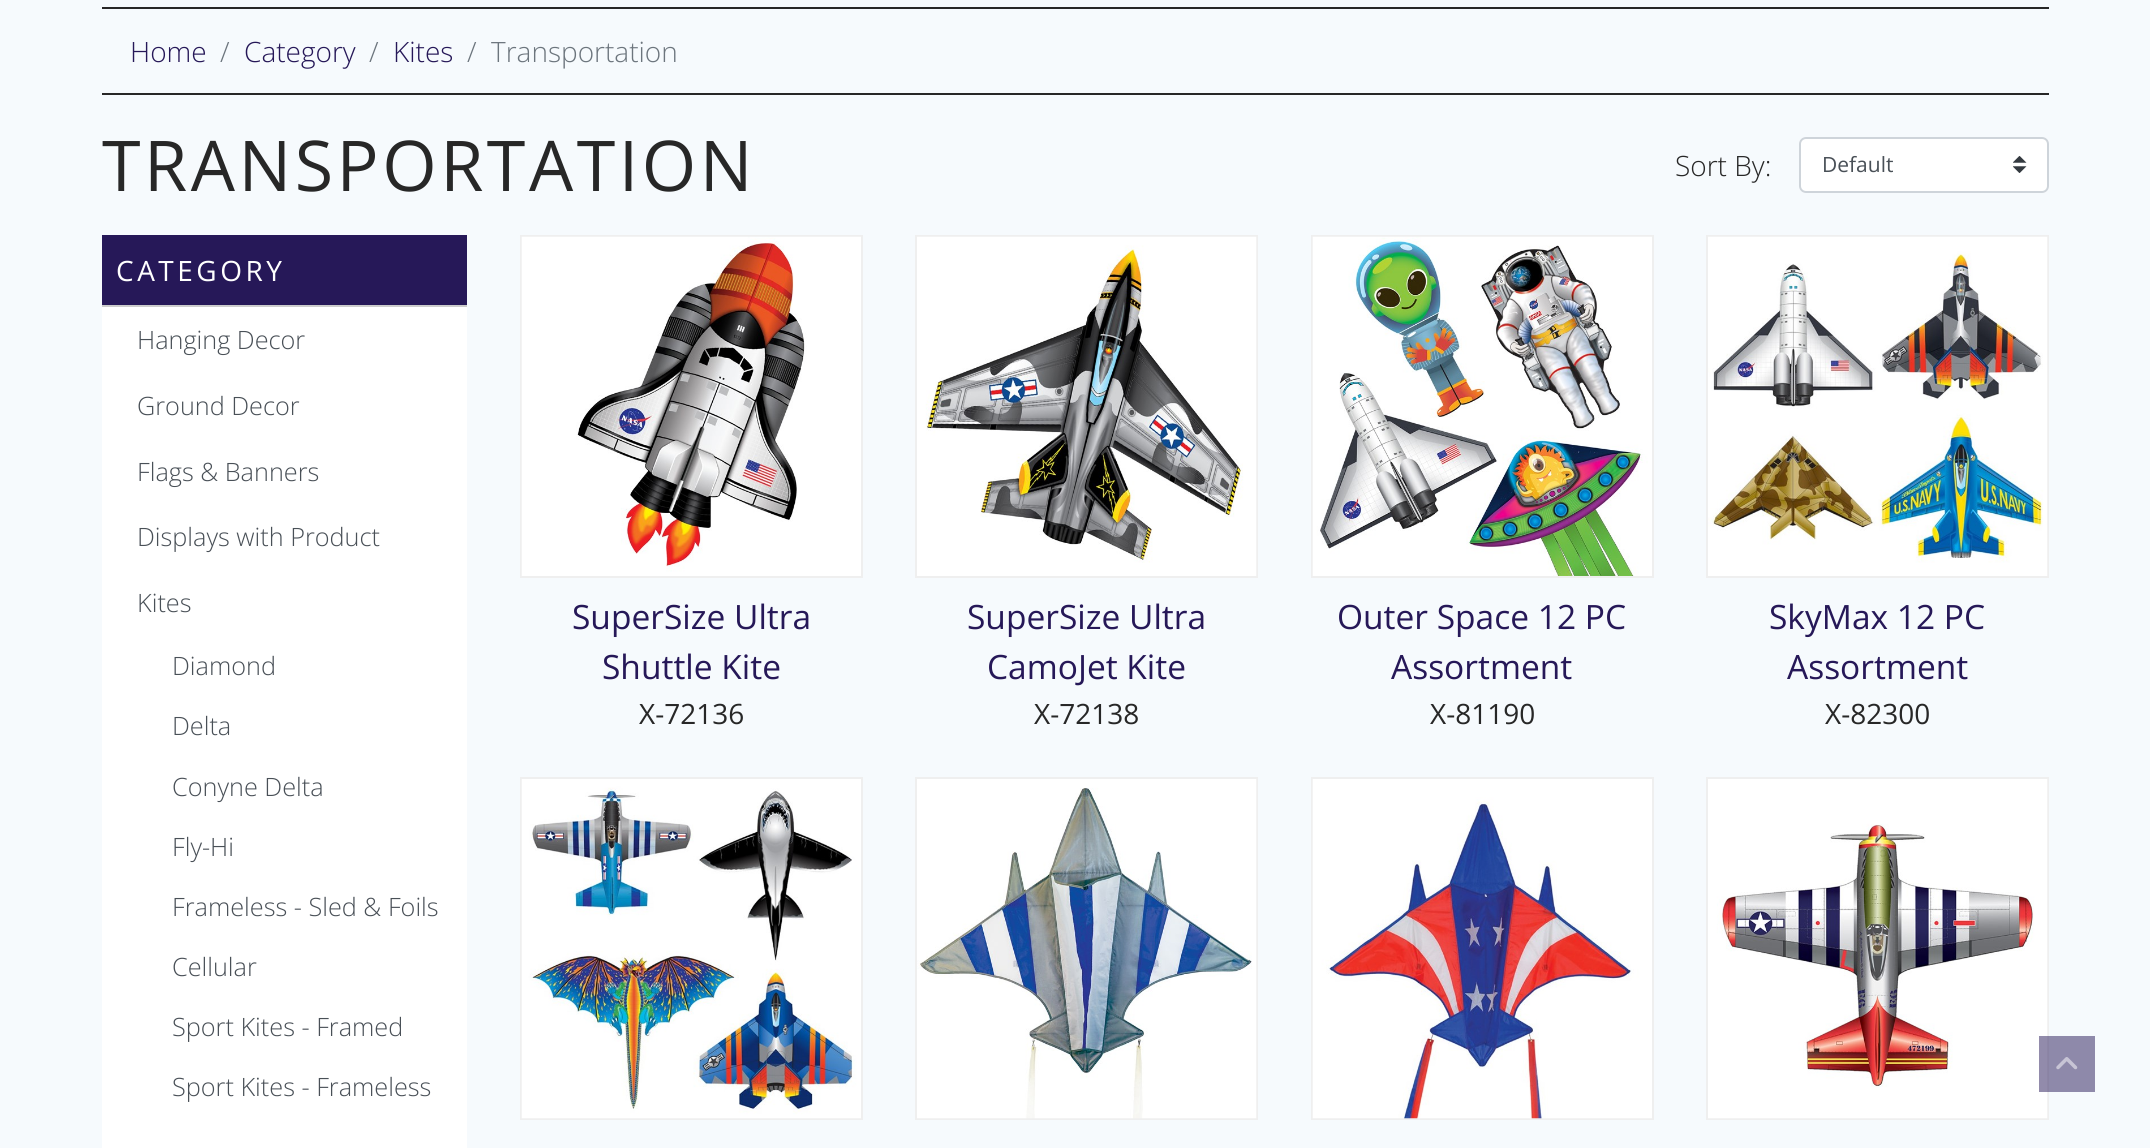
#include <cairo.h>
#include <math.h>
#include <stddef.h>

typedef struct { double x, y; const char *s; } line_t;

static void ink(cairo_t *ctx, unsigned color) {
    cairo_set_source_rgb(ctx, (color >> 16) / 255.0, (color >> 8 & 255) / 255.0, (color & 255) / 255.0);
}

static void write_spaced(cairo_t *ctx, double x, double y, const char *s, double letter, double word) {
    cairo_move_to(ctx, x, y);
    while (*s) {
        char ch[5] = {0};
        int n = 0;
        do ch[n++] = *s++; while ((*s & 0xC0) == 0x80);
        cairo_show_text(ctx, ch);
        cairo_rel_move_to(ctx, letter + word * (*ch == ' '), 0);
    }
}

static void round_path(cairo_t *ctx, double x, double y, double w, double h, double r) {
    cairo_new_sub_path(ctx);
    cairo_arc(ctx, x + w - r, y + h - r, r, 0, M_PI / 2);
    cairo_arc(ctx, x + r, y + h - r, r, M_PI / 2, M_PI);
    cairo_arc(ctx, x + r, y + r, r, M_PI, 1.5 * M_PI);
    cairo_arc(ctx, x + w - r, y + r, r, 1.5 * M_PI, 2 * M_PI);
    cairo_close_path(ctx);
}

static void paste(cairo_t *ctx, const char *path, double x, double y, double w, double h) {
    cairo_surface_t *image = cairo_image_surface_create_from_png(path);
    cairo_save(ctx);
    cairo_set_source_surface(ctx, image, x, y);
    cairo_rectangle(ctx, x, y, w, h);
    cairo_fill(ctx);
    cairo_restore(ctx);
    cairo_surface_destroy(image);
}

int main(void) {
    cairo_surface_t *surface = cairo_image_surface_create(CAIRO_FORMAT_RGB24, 2150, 1148);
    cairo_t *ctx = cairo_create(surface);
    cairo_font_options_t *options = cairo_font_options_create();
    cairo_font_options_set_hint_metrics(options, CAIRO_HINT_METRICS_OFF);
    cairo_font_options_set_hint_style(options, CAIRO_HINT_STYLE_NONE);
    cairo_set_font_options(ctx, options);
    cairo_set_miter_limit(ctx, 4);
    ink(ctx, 0xF6FAFD);
    cairo_paint(ctx);
    ink(ctx, 0x272727);
    cairo_rectangle(ctx, 102, 7, 1947, 2);
    cairo_fill(ctx);
    cairo_rectangle(ctx, 102, 93, 1947, 2);
    cairo_fill(ctx);
    cairo_select_font_face(ctx, "Open Sans Light", CAIRO_FONT_SLANT_NORMAL, CAIRO_FONT_WEIGHT_NORMAL);
    cairo_set_font_size(ctx, 28);
    ink(ctx, 0x261858);
    cairo_move_to(ctx, 130, 62);
    cairo_show_text(ctx, "Home");
    ink(ctx, 0x6C757D);
    cairo_move_to(ctx, 220, 62);
    cairo_show_text(ctx, "/");
    ink(ctx, 0x261858);
    cairo_move_to(ctx, 244, 62);
    cairo_show_text(ctx, "Category");
    ink(ctx, 0x6C757D);
    cairo_move_to(ctx, 369, 62);
    cairo_show_text(ctx, "/");
    ink(ctx, 0x261858);
    cairo_move_to(ctx, 393, 62);
    cairo_show_text(ctx, "Kites");
    ink(ctx, 0x6C757D);
    cairo_move_to(ctx, 467, 62);
    cairo_show_text(ctx, "/");
    cairo_move_to(ctx, 491, 62);
    cairo_show_text(ctx, "Transportation");
    cairo_select_font_face(ctx, "Open Sans", CAIRO_FONT_SLANT_NORMAL, CAIRO_FONT_WEIGHT_NORMAL);
    cairo_set_font_size(ctx, 70);
    ink(ctx, 0x272727);
    write_spaced(ctx, 102, 191, "TRANSPORTATION", 3.5, 0);
    cairo_select_font_face(ctx, "Open Sans Light", CAIRO_FONT_SLANT_NORMAL, CAIRO_FONT_WEIGHT_NORMAL);
    cairo_set_font_size(ctx, 28);
    cairo_move_to(ctx, 1675, 176);
    cairo_show_text(ctx, "Sort By:");
    ink(ctx, 0xFFFFFF);
    round_path(ctx, 1799, 137, 250, 56, 7);
    cairo_fill(ctx);
    paste(ctx, "media/1.png", 2013, 156, 14, 17);
    round_path(ctx, 1800, 138, 248, 54, 6);
    ink(ctx, 0xCED4DA);
    cairo_stroke(ctx);
    cairo_select_font_face(ctx, "Open Sans", CAIRO_FONT_SLANT_NORMAL, CAIRO_FONT_WEIGHT_NORMAL);
    cairo_set_font_size(ctx, 21);
    ink(ctx, 0x495057);
    cairo_move_to(ctx, 1822, 172);
    cairo_show_text(ctx, "Default");
    ink(ctx, 0x261858);
    cairo_rectangle(ctx, 102, 235, 365, 70);
    cairo_fill(ctx);
    ink(ctx, 0xCCCCCC);
    cairo_rectangle(ctx, 102, 305, 365, 2);
    cairo_fill(ctx);
    cairo_set_font_size(ctx, 28);
    ink(ctx, 0xFFFFFF);
    write_spaced(ctx, 116, 281, "CATEGORY", 3.5, 0);
    cairo_rectangle(ctx, 102, 307, 365, 841);
    cairo_fill(ctx);
    cairo_select_font_face(ctx, "Open Sans Light", CAIRO_FONT_SLANT_NORMAL, CAIRO_FONT_WEIGHT_NORMAL);
    cairo_set_font_size(ctx, 25.25);
    ink(ctx, 0x495057);
    {
        static const line_t items[] = {
            {137, 349, "Hanging Decor"},
            {137, 415, "Ground Decor"},
            {137, 481, "Flags & Banners"},
            {137, 546, "Displays with Product"},
            {137, 612, "Kites"},
            {172, 675, "Diamond"},
            {172, 735, "Delta"},
            {172, 796, "Conyne Delta"},
            {172, 856, "Fly-Hi"},
            {172, 916, "Frameless - Sled & Foils"},
            {172, 976, "Cellular"},
            {172, 1036, "Sport Kites - Framed"},
            {172, 1096, "Sport Kites - Frameless"},
        };
        for (size_t i = 0; i < sizeof items / sizeof *items; i++) {
            cairo_move_to(ctx, items[i].x, items[i].y);
            cairo_show_text(ctx, items[i].s);
        }
    }
    cairo_rectangle(ctx, 521, 236, 341, 341);
    ink(ctx, 0xEFEFEF);
    cairo_stroke(ctx);
    paste(ctx, "media/2.png", 521, 236, 340, 340);
    cairo_select_font_face(ctx, "Open Sans", CAIRO_FONT_SLANT_NORMAL, CAIRO_FONT_WEIGHT_NORMAL);
    cairo_set_font_size(ctx, 33.5);
    ink(ctx, 0x261858);
    cairo_move_to(ctx, 572, 629);
    cairo_show_text(ctx, "SuperSize Ultra");
    cairo_move_to(ctx, 602, 679);
    cairo_show_text(ctx, "Shuttle Kite");
    cairo_set_font_size(ctx, 28);
    ink(ctx, 0x272727);
    cairo_move_to(ctx, 639, 724);
    cairo_show_text(ctx, "X-72136");
    cairo_rectangle(ctx, 916, 236, 341, 341);
    ink(ctx, 0xEFEFEF);
    cairo_stroke(ctx);
    paste(ctx, "media/3.png", 917, 236, 340, 340);
    cairo_set_font_size(ctx, 33.5);
    ink(ctx, 0x261858);
    cairo_move_to(ctx, 967, 629);
    cairo_show_text(ctx, "SuperSize Ultra");
    cairo_move_to(ctx, 987, 679);
    cairo_show_text(ctx, "CamoJet Kite");
    cairo_set_font_size(ctx, 28);
    ink(ctx, 0x272727);
    cairo_move_to(ctx, 1034, 724);
    cairo_show_text(ctx, "X-72138");
    cairo_rectangle(ctx, 1312, 236, 341, 341);
    ink(ctx, 0xEFEFEF);
    cairo_stroke(ctx);
    paste(ctx, "media/4.png", 1312, 236, 340, 340);
    cairo_set_font_size(ctx, 33.5);
    ink(ctx, 0x261858);
    cairo_move_to(ctx, 1337, 629);
    cairo_show_text(ctx, "Outer Space 12 PC");
    cairo_move_to(ctx, 1391, 679);
    cairo_show_text(ctx, "Assortment");
    cairo_set_font_size(ctx, 28);
    ink(ctx, 0x272727);
    cairo_move_to(ctx, 1430, 724);
    cairo_show_text(ctx, "X-81190");
    cairo_rectangle(ctx, 1707, 236, 341, 341);
    ink(ctx, 0xEFEFEF);
    cairo_stroke(ctx);
    paste(ctx, "media/5.png", 1708, 236, 340, 340);
    cairo_set_font_size(ctx, 33.5);
    ink(ctx, 0x261858);
    cairo_move_to(ctx, 1769, 629);
    cairo_show_text(ctx, "SkyMax 12 PC");
    cairo_move_to(ctx, 1787, 679);
    cairo_show_text(ctx, "Assortment");
    cairo_set_font_size(ctx, 28);
    ink(ctx, 0x272727);
    cairo_move_to(ctx, 1825, 724);
    cairo_show_text(ctx, "X-82300");
    cairo_rectangle(ctx, 521, 778, 341, 341);
    ink(ctx, 0xEFEFEF);
    cairo_stroke(ctx);
    paste(ctx, "media/6.png", 521, 779, 340, 340);
    cairo_rectangle(ctx, 916, 778, 341, 341);
    cairo_stroke(ctx);
    paste(ctx, "media/7.png", 917, 779, 340, 340);
    cairo_rectangle(ctx, 1312, 778, 341, 341);
    cairo_stroke(ctx);
    paste(ctx, "media/8.png", 1312, 779, 340, 340);
    cairo_rectangle(ctx, 1707, 778, 341, 341);
    cairo_stroke(ctx);
    paste(ctx, "media/9.png", 1708, 779, 340, 340);
    cairo_set_source_rgba(ctx, 0.149, 0.094, 0.345, 0.5);
    cairo_rectangle(ctx, 2039, 1036, 56, 56);
    cairo_fill(ctx);
    paste(ctx, "media/10.png", 2056, 1057, 22, 13);
    cairo_surface_write_to_png(surface, "image.png");
    cairo_font_options_destroy(options);
    cairo_destroy(ctx);
    cairo_surface_destroy(surface);
    return 0;
}
